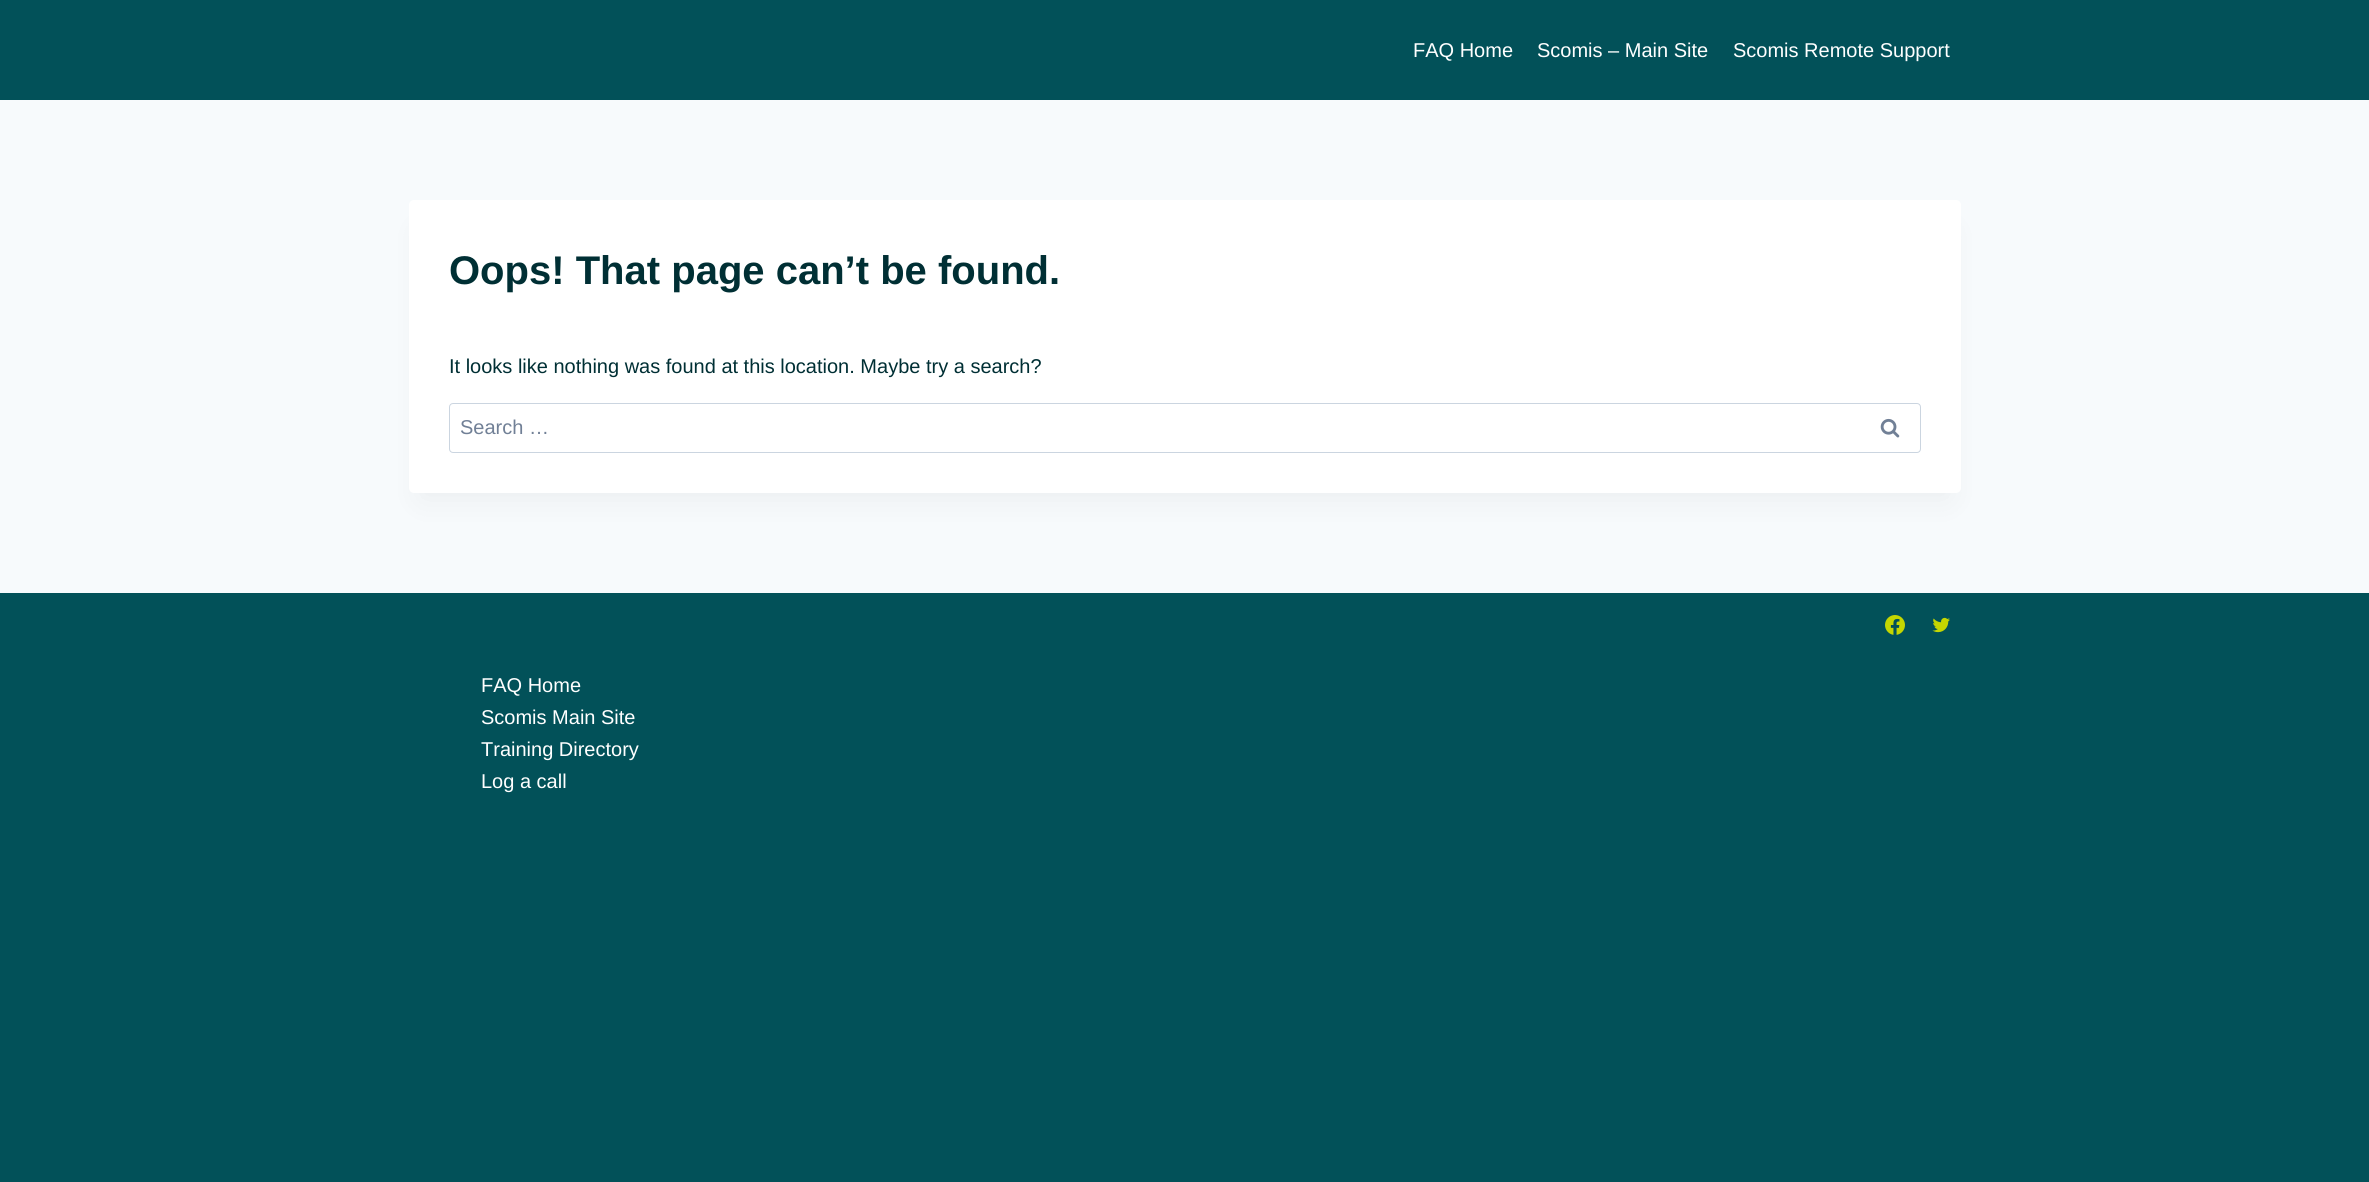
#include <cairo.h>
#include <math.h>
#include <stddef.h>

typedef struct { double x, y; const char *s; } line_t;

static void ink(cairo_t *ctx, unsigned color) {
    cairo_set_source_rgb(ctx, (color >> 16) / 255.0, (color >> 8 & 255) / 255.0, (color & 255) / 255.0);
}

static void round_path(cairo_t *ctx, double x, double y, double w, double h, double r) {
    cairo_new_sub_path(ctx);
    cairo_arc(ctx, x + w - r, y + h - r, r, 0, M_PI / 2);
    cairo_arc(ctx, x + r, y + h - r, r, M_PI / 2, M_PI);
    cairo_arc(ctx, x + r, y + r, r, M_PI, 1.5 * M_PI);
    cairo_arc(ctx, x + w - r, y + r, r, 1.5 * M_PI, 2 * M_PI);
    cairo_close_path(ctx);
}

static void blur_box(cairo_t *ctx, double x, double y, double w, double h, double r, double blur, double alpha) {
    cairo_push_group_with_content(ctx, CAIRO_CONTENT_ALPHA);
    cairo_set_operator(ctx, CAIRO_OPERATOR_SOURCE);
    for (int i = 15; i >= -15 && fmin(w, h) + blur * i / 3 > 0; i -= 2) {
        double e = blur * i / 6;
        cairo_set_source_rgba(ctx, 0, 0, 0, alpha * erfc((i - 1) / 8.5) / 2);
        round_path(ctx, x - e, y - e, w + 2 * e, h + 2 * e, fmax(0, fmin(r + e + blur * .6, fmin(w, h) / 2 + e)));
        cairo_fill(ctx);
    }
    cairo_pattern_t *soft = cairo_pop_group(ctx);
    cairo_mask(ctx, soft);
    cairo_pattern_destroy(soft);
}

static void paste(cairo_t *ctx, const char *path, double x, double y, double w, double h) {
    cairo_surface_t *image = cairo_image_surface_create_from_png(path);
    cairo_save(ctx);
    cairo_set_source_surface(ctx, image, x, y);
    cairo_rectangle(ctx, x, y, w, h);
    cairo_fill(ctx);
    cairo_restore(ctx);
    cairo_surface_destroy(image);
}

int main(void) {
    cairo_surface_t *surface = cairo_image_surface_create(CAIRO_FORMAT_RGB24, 2369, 1182);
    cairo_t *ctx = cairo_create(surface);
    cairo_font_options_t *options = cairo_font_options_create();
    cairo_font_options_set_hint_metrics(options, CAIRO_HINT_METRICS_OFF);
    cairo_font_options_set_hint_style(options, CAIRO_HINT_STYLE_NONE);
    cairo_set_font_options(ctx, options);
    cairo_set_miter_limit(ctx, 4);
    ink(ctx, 0xF7FAFC);
    cairo_paint(ctx);
    ink(ctx, 0x025159);
    cairo_rectangle(ctx, 0, 0, 2369, 100);
    cairo_fill(ctx);
    cairo_select_font_face(ctx, "Liberation Sans", CAIRO_FONT_SLANT_NORMAL, CAIRO_FONT_WEIGHT_NORMAL);
    cairo_set_font_size(ctx, 20);
    ink(ctx, 0xFFFFFF);
    {
        static const line_t items[] = {
            {1413, 57, "FAQ Home"},
            {1537, 57, "Scomis – Main Site"},
            {1733, 57, "Scomis Remote Support"},
        };
        for (size_t i = 0; i < sizeof items / sizeof *items; i++) {
            cairo_move_to(ctx, items[i].x, items[i].y);
            cairo_show_text(ctx, items[i].s);
        }
    }
    ink(ctx, 0x000000);
    blur_box(ctx, 421, 231, 1528, 268, 0, 15.5, 0.05);
    ink(ctx, 0xFFFFFF);
    round_path(ctx, 409, 200, 1552, 293, 5);
    cairo_fill(ctx);
    cairo_select_font_face(ctx, "Liberation Sans", CAIRO_FONT_SLANT_NORMAL, CAIRO_FONT_WEIGHT_BOLD);
    cairo_set_font_size(ctx, 40);
    ink(ctx, 0x002F34);
    cairo_move_to(ctx, 449, 284);
    cairo_show_text(ctx, "Oops! That page can’t be found.");
    cairo_select_font_face(ctx, "Liberation Sans", CAIRO_FONT_SLANT_NORMAL, CAIRO_FONT_WEIGHT_NORMAL);
    cairo_set_font_size(ctx, 20);
    cairo_move_to(ctx, 449, 373);
    cairo_show_text(ctx, "It looks like nothing was found at this location. Maybe try a search?");
    round_path(ctx, 449.5, 403.5, 1471, 49, 3.5);
    ink(ctx, 0xCBD5E0);
    cairo_set_line_width(ctx, 1);
    cairo_stroke(ctx);
    ink(ctx, 0x718096);
    cairo_move_to(ctx, 460, 434);
    cairo_show_text(ctx, "Search …");
    paste(ctx, "media/1.png", 1880, 418, 20, 20);
    ink(ctx, 0x025159);
    cairo_rectangle(ctx, 0, 593, 2369, 589);
    cairo_fill(ctx);
    paste(ctx, "media/2.png", 1885, 615, 20, 20);
    paste(ctx, "media/3.png", 1932, 617, 18, 16);
    ink(ctx, 0xFFFFFF);
    {
        static const line_t items[] = {
            {481, 692, "FAQ Home"},
            {481, 724, "Scomis Main Site"},
            {481, 756, "Training Directory"},
            {481, 788, "Log a call"},
        };
        for (size_t i = 0; i < sizeof items / sizeof *items; i++) {
            cairo_move_to(ctx, items[i].x, items[i].y);
            cairo_show_text(ctx, items[i].s);
        }
    }
    cairo_surface_write_to_png(surface, "image.png");
    cairo_font_options_destroy(options);
    cairo_destroy(ctx);
    cairo_surface_destroy(surface);
    return 0;
}
